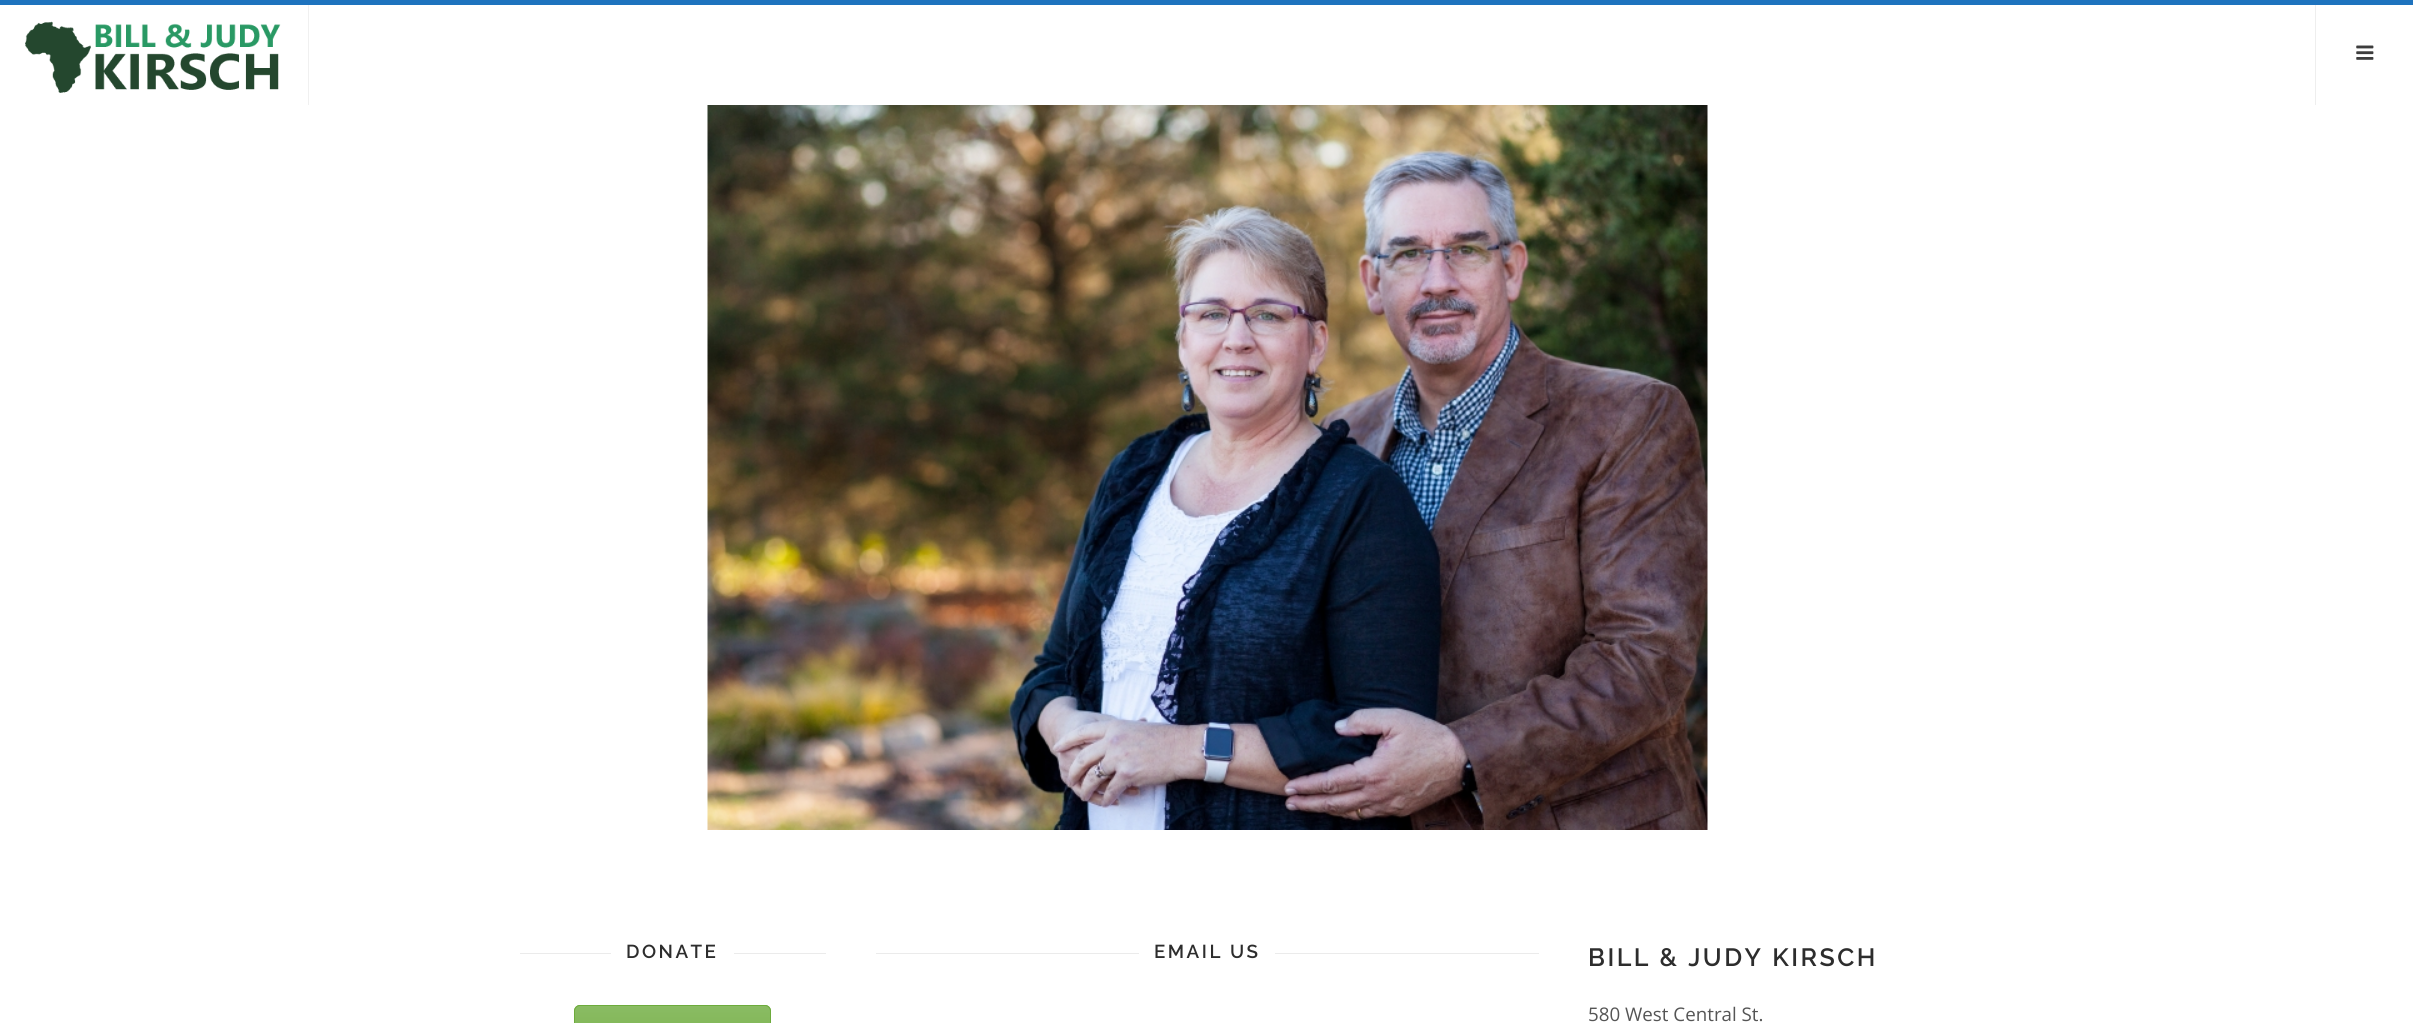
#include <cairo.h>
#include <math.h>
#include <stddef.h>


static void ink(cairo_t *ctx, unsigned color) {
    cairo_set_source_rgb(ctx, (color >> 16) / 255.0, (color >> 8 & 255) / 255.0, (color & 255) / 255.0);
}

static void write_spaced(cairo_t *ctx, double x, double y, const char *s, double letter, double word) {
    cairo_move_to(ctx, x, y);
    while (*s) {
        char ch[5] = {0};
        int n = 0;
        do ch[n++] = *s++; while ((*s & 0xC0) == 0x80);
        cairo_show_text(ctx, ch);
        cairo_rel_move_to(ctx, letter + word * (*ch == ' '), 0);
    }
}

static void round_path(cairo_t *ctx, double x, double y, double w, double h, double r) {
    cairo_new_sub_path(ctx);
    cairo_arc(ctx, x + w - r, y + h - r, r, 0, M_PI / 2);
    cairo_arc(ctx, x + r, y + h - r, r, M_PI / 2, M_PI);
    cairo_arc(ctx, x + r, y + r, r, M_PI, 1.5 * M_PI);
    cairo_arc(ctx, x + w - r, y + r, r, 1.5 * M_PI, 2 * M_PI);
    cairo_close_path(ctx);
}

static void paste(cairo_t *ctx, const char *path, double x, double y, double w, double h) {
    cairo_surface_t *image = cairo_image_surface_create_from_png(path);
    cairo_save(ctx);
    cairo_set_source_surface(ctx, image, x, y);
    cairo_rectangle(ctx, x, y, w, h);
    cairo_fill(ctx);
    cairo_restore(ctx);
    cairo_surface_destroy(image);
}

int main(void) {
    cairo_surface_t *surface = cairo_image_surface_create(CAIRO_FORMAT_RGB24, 2413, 1023);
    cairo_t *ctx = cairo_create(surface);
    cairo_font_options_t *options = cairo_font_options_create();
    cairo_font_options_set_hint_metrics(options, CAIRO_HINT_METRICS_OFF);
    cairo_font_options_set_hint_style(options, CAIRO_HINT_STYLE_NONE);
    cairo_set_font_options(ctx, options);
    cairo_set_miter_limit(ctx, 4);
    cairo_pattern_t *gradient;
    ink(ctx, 0xFFFFFF);
    cairo_paint(ctx);
    ink(ctx, 0x1E73BE);
    cairo_rectangle(ctx, 0, 0, 2413, 5);
    cairo_fill(ctx);
    ink(ctx, 0xF0F0F0);
    cairo_rectangle(ctx, 308, 5, 1, 100);
    cairo_fill(ctx);
    paste(ctx, "media/1.png", 25, 21, 256, 72);
    ink(ctx, 0xEEEEEE);
    cairo_rectangle(ctx, 2315, 5, 1, 100);
    cairo_fill(ctx);
    paste(ctx, "media/2.png", 2356, 45, 18, 15);
    paste(ctx, "media/3.png", 707, 105, 1001, 725);
    ink(ctx, 0xEBEBEB);
    cairo_rectangle(ctx, 520, 953, 91, 1);
    cairo_fill(ctx);
    cairo_select_font_face(ctx, "Raleway SemiBold", CAIRO_FONT_SLANT_NORMAL, CAIRO_FONT_WEIGHT_NORMAL);
    cairo_set_font_size(ctx, 18.75);
    ink(ctx, 0x2D2D2D);
    write_spaced(ctx, 626, 958, "DONATE", 2.5, 0);
    ink(ctx, 0xEBEBEB);
    cairo_rectangle(ctx, 734, 953, 92, 1);
    cairo_fill(ctx);
    ink(ctx, 0x6DAB3C);
    round_path(ctx, 574, 1005, 197, 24, 6);
    cairo_fill(ctx);
    cairo_save(ctx);
    round_path(ctx, 574, 1005, 197, 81, 6);
    cairo_clip(ctx);
    gradient = cairo_pattern_create_linear(673, 1006, 673, 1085);
    cairo_pattern_add_color_stop_rgba(gradient, 0, 1, 1, 1, 0.2);
    cairo_pattern_add_color_stop_rgba(gradient, 1, 1, 1, 1, 0.01);
    cairo_set_source(ctx, gradient);
    cairo_pattern_destroy(gradient);
    cairo_rectangle(ctx, 574, 1006, 197, 17);
    cairo_fill(ctx);
    cairo_restore(ctx);
    round_path(ctx, 574.5, 1005.5, 196, 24, 5.5);
    cairo_set_line_width(ctx, 1);
    cairo_stroke(ctx);
    ink(ctx, 0xEBEBEB);
    cairo_rectangle(ctx, 876, 953, 263, 1);
    cairo_fill(ctx);
    ink(ctx, 0x2D2D2D);
    write_spaced(ctx, 1154, 958, "EMAIL US", 2.5, 0);
    ink(ctx, 0xEBEBEB);
    cairo_rectangle(ctx, 1275, 953, 264, 1);
    cairo_fill(ctx);
    cairo_set_font_size(ctx, 25);
    ink(ctx, 0x2D2D2D);
    write_spaced(ctx, 1588, 966, "BILL & JUDY KIRSCH", 2.5, 0);
    cairo_select_font_face(ctx, "Open Sans", CAIRO_FONT_SLANT_NORMAL, CAIRO_FONT_WEIGHT_NORMAL);
    cairo_set_font_size(ctx, 18.75);
    ink(ctx, 0x555555);
    cairo_move_to(ctx, 1588, 1021);
    cairo_show_text(ctx, "580 West Central St.");
    cairo_surface_write_to_png(surface, "image.png");
    cairo_font_options_destroy(options);
    cairo_destroy(ctx);
    cairo_surface_destroy(surface);
    return 0;
}
